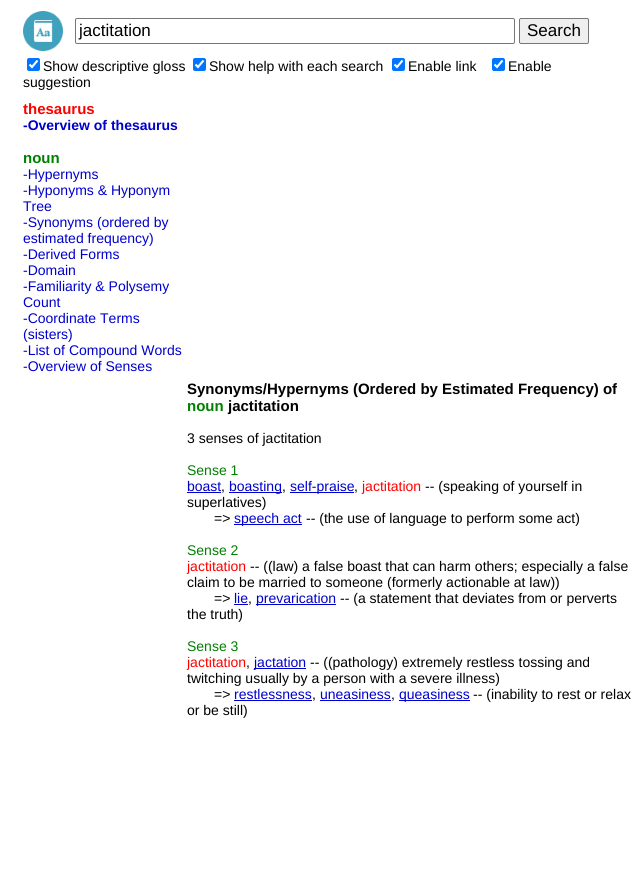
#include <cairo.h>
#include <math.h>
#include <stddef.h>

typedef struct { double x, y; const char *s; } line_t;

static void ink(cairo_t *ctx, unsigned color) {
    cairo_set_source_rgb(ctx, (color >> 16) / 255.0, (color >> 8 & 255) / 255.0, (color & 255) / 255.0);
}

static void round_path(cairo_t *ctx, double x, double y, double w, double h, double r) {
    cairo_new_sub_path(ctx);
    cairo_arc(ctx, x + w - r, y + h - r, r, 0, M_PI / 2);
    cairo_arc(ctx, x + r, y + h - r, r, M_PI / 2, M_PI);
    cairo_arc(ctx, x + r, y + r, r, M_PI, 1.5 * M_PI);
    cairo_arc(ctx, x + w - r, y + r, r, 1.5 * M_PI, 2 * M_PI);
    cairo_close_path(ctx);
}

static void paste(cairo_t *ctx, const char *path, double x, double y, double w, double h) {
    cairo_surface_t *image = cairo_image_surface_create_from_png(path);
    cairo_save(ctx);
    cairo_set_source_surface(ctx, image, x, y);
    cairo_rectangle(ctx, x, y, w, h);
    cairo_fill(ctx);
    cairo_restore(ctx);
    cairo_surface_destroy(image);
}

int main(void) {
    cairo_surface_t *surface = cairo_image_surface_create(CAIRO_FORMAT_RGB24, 635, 890);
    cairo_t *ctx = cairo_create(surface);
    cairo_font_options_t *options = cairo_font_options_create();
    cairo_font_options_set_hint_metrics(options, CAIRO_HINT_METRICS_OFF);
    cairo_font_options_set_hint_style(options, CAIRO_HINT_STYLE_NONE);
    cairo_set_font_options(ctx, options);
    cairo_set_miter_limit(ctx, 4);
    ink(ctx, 0xFFFFFF);
    cairo_paint(ctx);
    paste(ctx, "media/1.png", 23, 11, 40, 40);
    round_path(ctx, 75.5, 18.5, 439, 25, 1.5);
    ink(ctx, 0x767676);
    cairo_set_line_width(ctx, 1);
    cairo_stroke(ctx);
    cairo_select_font_face(ctx, "Liberation Sans", CAIRO_FONT_SLANT_NORMAL, CAIRO_FONT_WEIGHT_NORMAL);
    cairo_set_font_size(ctx, 17);
    ink(ctx, 0x000000);
    cairo_move_to(ctx, 79, 36);
    cairo_show_text(ctx, "jactitation");
    ink(ctx, 0xEFEFEF);
    round_path(ctx, 519.5, 18.5, 69, 25, 1.5);
    cairo_fill_preserve(ctx);
    ink(ctx, 0x767676);
    cairo_stroke(ctx);
    ink(ctx, 0x000000);
    cairo_move_to(ctx, 527, 36);
    cairo_show_text(ctx, "Search");
    ink(ctx, 0x0075FF);
    round_path(ctx, 492, 58, 13, 13, 2);
    cairo_fill(ctx);
    cairo_new_path(ctx);
    cairo_move_to(ctx, 494.5, 64.5);
    cairo_line_to(ctx, 497, 67);
    cairo_line_to(ctx, 502.5, 60.5);
    ink(ctx, 0xFFFFFF);
    cairo_set_line_width(ctx, 2.1);
    cairo_stroke(ctx);
    cairo_set_font_size(ctx, 14);
    ink(ctx, 0x000000);
    cairo_move_to(ctx, 508, 71);
    cairo_show_text(ctx, "Enable");
    cairo_move_to(ctx, 23, 87);
    cairo_show_text(ctx, "suggestion");
    ink(ctx, 0x0075FF);
    round_path(ctx, 27, 58, 13, 13, 2);
    cairo_fill(ctx);
    cairo_new_path(ctx);
    cairo_move_to(ctx, 29.5, 64.5);
    cairo_line_to(ctx, 32, 67);
    cairo_line_to(ctx, 37.5, 60.5);
    ink(ctx, 0xFFFFFF);
    cairo_stroke(ctx);
    ink(ctx, 0x000000);
    cairo_move_to(ctx, 43, 71);
    cairo_show_text(ctx, "Show descriptive gloss");
    ink(ctx, 0x0075FF);
    round_path(ctx, 193, 58, 13, 13, 2);
    cairo_fill(ctx);
    cairo_new_path(ctx);
    cairo_move_to(ctx, 195.5, 64.5);
    cairo_line_to(ctx, 198, 67);
    cairo_line_to(ctx, 203.5, 60.5);
    ink(ctx, 0xFFFFFF);
    cairo_stroke(ctx);
    ink(ctx, 0x000000);
    cairo_move_to(ctx, 209, 71);
    cairo_show_text(ctx, "Show help with each search");
    ink(ctx, 0x0075FF);
    round_path(ctx, 392, 58, 13, 13, 2);
    cairo_fill(ctx);
    cairo_new_path(ctx);
    cairo_move_to(ctx, 394.5, 64.5);
    cairo_line_to(ctx, 397, 67);
    cairo_line_to(ctx, 402.5, 60.5);
    ink(ctx, 0xFFFFFF);
    cairo_stroke(ctx);
    ink(ctx, 0x000000);
    cairo_move_to(ctx, 408, 71);
    cairo_show_text(ctx, "Enable link");
    cairo_select_font_face(ctx, "Liberation Sans", CAIRO_FONT_SLANT_NORMAL, CAIRO_FONT_WEIGHT_BOLD);
    cairo_set_font_size(ctx, 15);
    ink(ctx, 0xFF0000);
    cairo_move_to(ctx, 23, 114);
    cairo_show_text(ctx, "thesaurus");
    cairo_set_font_size(ctx, 14);
    ink(ctx, 0x0000CC);
    cairo_move_to(ctx, 23, 130);
    cairo_show_text(ctx, "-Overview of thesaurus");
    cairo_set_font_size(ctx, 15);
    ink(ctx, 0x008000);
    cairo_move_to(ctx, 23, 163);
    cairo_show_text(ctx, "noun");
    cairo_select_font_face(ctx, "Liberation Sans", CAIRO_FONT_SLANT_NORMAL, CAIRO_FONT_WEIGHT_NORMAL);
    cairo_set_font_size(ctx, 14);
    ink(ctx, 0x0000CC);
    {
        static const line_t items[] = {
            {23, 179, "-Hypernyms"},
            {23, 195, "-Hyponyms & Hyponym"},
            {23, 211, "Tree"},
            {23, 227, "-Synonyms (ordered by"},
            {23, 243, "estimated frequency)"},
            {23, 259, "-Derived Forms"},
            {23, 275, "-Domain"},
            {23, 291, "-Familiarity & Polysemy"},
            {23, 307, "Count"},
            {23, 323, "-Coordinate Terms"},
            {23, 339, "(sisters)"},
            {23, 355, "-List of Compound Words"},
            {23, 371, "-Overview of Senses"},
        };
        for (size_t i = 0; i < sizeof items / sizeof *items; i++) {
            cairo_move_to(ctx, items[i].x, items[i].y);
            cairo_show_text(ctx, items[i].s);
        }
    }
    cairo_select_font_face(ctx, "Liberation Sans", CAIRO_FONT_SLANT_NORMAL, CAIRO_FONT_WEIGHT_BOLD);
    cairo_set_font_size(ctx, 15);
    ink(ctx, 0x000000);
    cairo_move_to(ctx, 187, 394);
    cairo_show_text(ctx, "Synonyms/Hypernyms (Ordered by Estimated Frequency) of");
    ink(ctx, 0x008000);
    cairo_move_to(ctx, 187, 411);
    cairo_show_text(ctx, "noun");
    ink(ctx, 0x000000);
    cairo_move_to(ctx, 228, 411);
    cairo_show_text(ctx, "jactitation");
    cairo_select_font_face(ctx, "Liberation Sans", CAIRO_FONT_SLANT_NORMAL, CAIRO_FONT_WEIGHT_NORMAL);
    cairo_set_font_size(ctx, 14);
    cairo_move_to(ctx, 187, 443);
    cairo_show_text(ctx, "3 senses of jactitation");
    ink(ctx, 0x008000);
    cairo_move_to(ctx, 187, 475);
    cairo_show_text(ctx, "Sense 1");
    ink(ctx, 0x0000CC);
    cairo_move_to(ctx, 187, 491);
    cairo_show_text(ctx, "boast");
    cairo_rectangle(ctx, 187, 492, 34, 1);
    cairo_fill(ctx);
    ink(ctx, 0x000000);
    cairo_move_to(ctx, 221, 491);
    cairo_show_text(ctx, ",");
    ink(ctx, 0x0000CC);
    cairo_rectangle(ctx, 229, 492, 53, 1);
    cairo_fill(ctx);
    cairo_move_to(ctx, 229, 491);
    cairo_show_text(ctx, "boasting");
    ink(ctx, 0x000000);
    cairo_move_to(ctx, 282, 491);
    cairo_show_text(ctx, ",");
    ink(ctx, 0x0000CC);
    cairo_rectangle(ctx, 290, 492, 64, 1);
    cairo_fill(ctx);
    cairo_move_to(ctx, 290, 491);
    cairo_show_text(ctx, "self-praise");
    ink(ctx, 0x000000);
    cairo_move_to(ctx, 354, 491);
    cairo_show_text(ctx, ",");
    ink(ctx, 0xFF0000);
    cairo_move_to(ctx, 362, 491);
    cairo_show_text(ctx, "jactitation");
    ink(ctx, 0x000000);
    {
        static const line_t items[] = {
            {425, 491, "-- (speaking of yourself in"},
            {187, 507, "superlatives)"},
            {214, 523, "=>"},
        };
        for (size_t i = 0; i < sizeof items / sizeof *items; i++) {
            cairo_move_to(ctx, items[i].x, items[i].y);
            cairo_show_text(ctx, items[i].s);
        }
    }
    ink(ctx, 0x0000CC);
    cairo_rectangle(ctx, 234, 524, 68, 1);
    cairo_fill(ctx);
    cairo_move_to(ctx, 234, 523);
    cairo_show_text(ctx, "speech act");
    ink(ctx, 0x000000);
    cairo_move_to(ctx, 306, 523);
    cairo_show_text(ctx, "-- (the use of language to perform some act)");
    ink(ctx, 0x008000);
    cairo_move_to(ctx, 187, 555);
    cairo_show_text(ctx, "Sense 2");
    ink(ctx, 0xFF0000);
    cairo_move_to(ctx, 187, 571);
    cairo_show_text(ctx, "jactitation");
    ink(ctx, 0x000000);
    {
        static const line_t items[] = {
            {250, 571, "-- ((law) a false boast that can harm others; especially a false"},
            {187, 587, "claim to be married to someone (formerly actionable at law))"},
            {214, 603, "=>"},
        };
        for (size_t i = 0; i < sizeof items / sizeof *items; i++) {
            cairo_move_to(ctx, items[i].x, items[i].y);
            cairo_show_text(ctx, items[i].s);
        }
    }
    ink(ctx, 0x0000CC);
    cairo_move_to(ctx, 234, 603);
    cairo_show_text(ctx, "lie");
    cairo_rectangle(ctx, 234, 604, 14, 1);
    cairo_fill(ctx);
    cairo_rectangle(ctx, 256, 604, 80, 1);
    cairo_fill(ctx);
    cairo_move_to(ctx, 256, 603);
    cairo_show_text(ctx, "prevarication");
    ink(ctx, 0x000000);
    {
        static const line_t items[] = {
            {340, 603, "-- (a statement that deviates from or perverts"},
            {248, 603, ","},
            {187, 619, "the truth)"},
        };
        for (size_t i = 0; i < sizeof items / sizeof *items; i++) {
            cairo_move_to(ctx, items[i].x, items[i].y);
            cairo_show_text(ctx, items[i].s);
        }
    }
    ink(ctx, 0x008000);
    cairo_move_to(ctx, 187, 651);
    cairo_show_text(ctx, "Sense 3");
    ink(ctx, 0xFF0000);
    cairo_move_to(ctx, 187, 667);
    cairo_show_text(ctx, "jactitation");
    ink(ctx, 0x000000);
    cairo_move_to(ctx, 246, 667);
    cairo_show_text(ctx, ",");
    ink(ctx, 0x0000CC);
    cairo_rectangle(ctx, 254, 668, 52, 1);
    cairo_fill(ctx);
    cairo_move_to(ctx, 254, 667);
    cairo_show_text(ctx, "jactation");
    ink(ctx, 0x000000);
    {
        static const line_t items[] = {
            {310, 667, "-- ((pathology) extremely restless tossing and"},
            {187, 683, "twitching usually by a person with a severe illness)"},
            {214, 699, "=>"},
        };
        for (size_t i = 0; i < sizeof items / sizeof *items; i++) {
            cairo_move_to(ctx, items[i].x, items[i].y);
            cairo_show_text(ctx, items[i].s);
        }
    }
    ink(ctx, 0x0000CC);
    cairo_move_to(ctx, 234, 699);
    cairo_show_text(ctx, "restlessness");
    cairo_rectangle(ctx, 234, 700, 78, 1);
    cairo_fill(ctx);
    cairo_move_to(ctx, 320, 699);
    cairo_show_text(ctx, "uneasiness");
    cairo_rectangle(ctx, 320, 700, 71, 1);
    cairo_fill(ctx);
    cairo_rectangle(ctx, 399, 700, 71, 1);
    cairo_fill(ctx);
    cairo_move_to(ctx, 399, 699);
    cairo_show_text(ctx, "queasiness");
    ink(ctx, 0x000000);
    {
        static const line_t items[] = {
            {473, 699, "-- (inability to rest or relax"},
            {312, 699, ","},
            {391, 699, ","},
            {187, 715, "or be still)"},
        };
        for (size_t i = 0; i < sizeof items / sizeof *items; i++) {
            cairo_move_to(ctx, items[i].x, items[i].y);
            cairo_show_text(ctx, items[i].s);
        }
    }
    cairo_surface_write_to_png(surface, "image.png");
    cairo_font_options_destroy(options);
    cairo_destroy(ctx);
    cairo_surface_destroy(surface);
    return 0;
}
